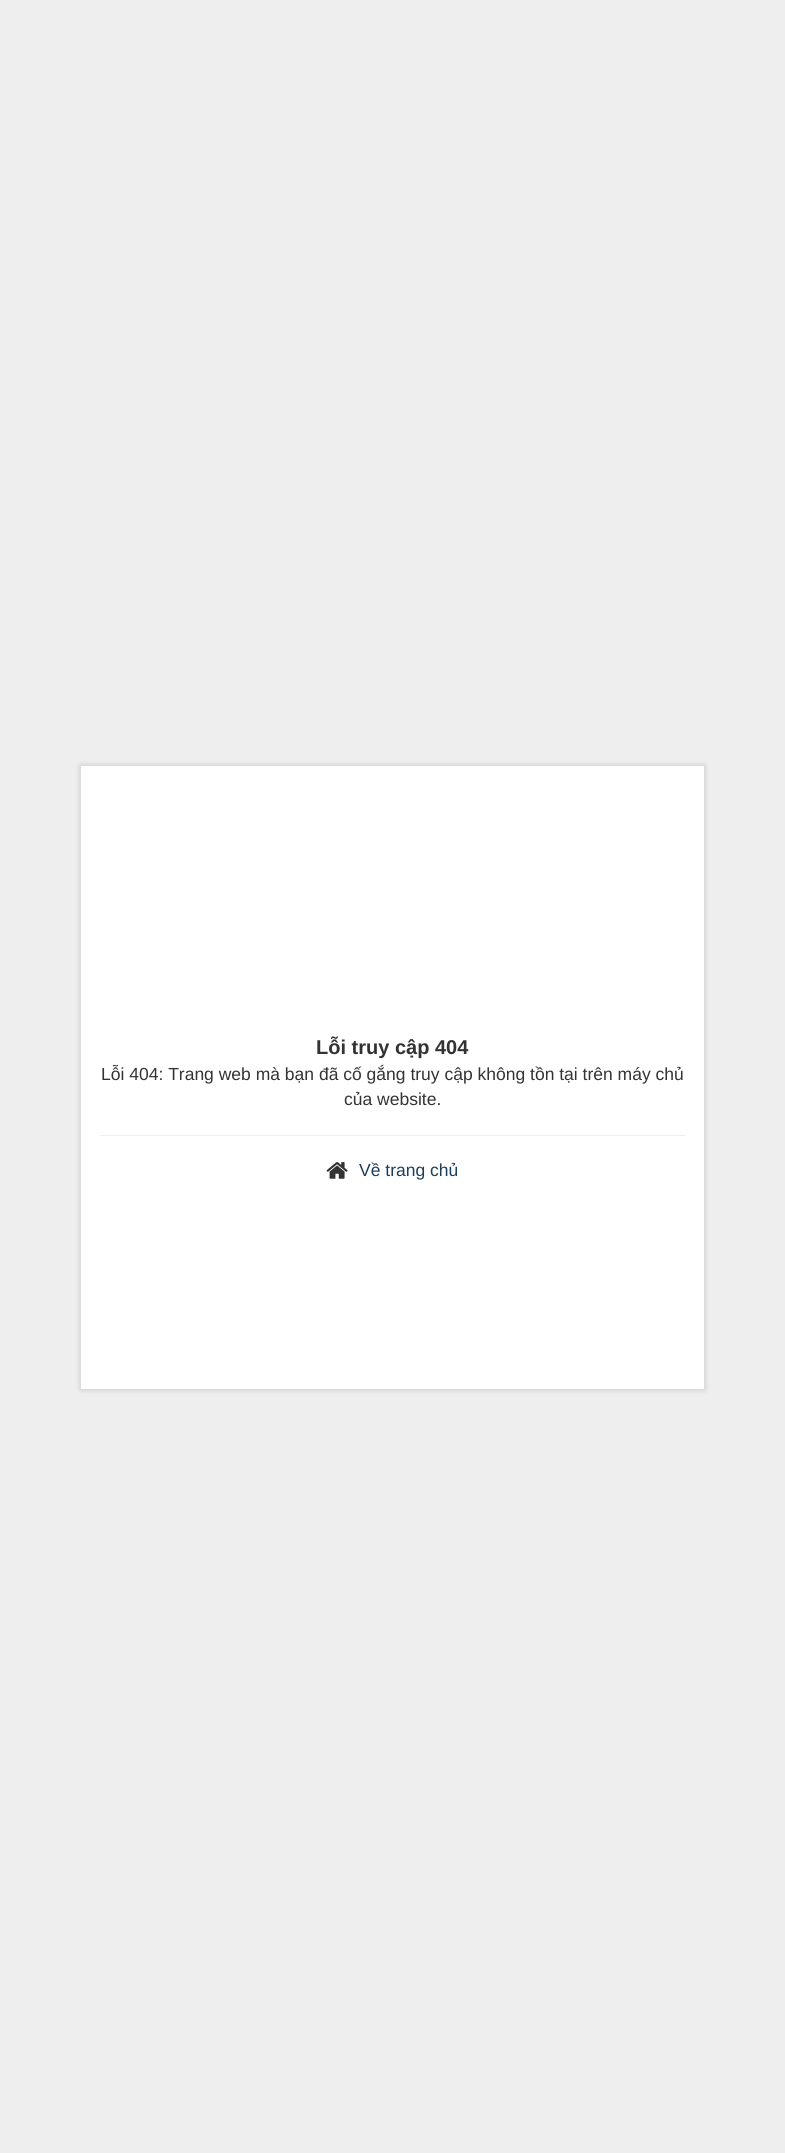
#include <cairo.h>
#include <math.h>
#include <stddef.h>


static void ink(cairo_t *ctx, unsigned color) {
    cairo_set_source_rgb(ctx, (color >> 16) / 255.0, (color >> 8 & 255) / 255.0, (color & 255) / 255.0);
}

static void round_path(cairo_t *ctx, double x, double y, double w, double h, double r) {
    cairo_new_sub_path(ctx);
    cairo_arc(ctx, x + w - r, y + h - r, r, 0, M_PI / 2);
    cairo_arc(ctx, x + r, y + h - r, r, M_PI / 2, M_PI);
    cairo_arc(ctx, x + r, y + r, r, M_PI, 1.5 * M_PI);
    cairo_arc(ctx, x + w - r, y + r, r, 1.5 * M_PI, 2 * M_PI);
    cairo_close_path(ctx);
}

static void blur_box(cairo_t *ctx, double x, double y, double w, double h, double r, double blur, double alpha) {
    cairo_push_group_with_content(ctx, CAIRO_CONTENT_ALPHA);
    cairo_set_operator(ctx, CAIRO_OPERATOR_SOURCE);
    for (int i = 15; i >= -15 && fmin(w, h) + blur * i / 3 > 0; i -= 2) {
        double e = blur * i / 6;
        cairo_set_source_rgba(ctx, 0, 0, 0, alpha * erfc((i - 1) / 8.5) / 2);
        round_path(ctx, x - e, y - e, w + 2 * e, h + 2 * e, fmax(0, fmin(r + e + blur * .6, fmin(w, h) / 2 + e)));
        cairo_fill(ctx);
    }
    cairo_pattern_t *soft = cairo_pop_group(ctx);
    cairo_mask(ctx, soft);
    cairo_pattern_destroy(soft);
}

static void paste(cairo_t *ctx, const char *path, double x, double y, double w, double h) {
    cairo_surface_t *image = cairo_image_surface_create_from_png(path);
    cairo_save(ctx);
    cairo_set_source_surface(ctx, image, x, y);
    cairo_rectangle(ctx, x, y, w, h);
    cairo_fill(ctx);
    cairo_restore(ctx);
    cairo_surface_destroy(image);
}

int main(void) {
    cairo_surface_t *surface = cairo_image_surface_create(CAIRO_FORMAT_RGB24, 785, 2153);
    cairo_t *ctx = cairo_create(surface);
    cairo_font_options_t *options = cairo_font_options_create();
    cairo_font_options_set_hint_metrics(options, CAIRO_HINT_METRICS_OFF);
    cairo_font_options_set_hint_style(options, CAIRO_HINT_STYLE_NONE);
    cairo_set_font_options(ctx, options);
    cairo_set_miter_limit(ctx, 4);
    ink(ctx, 0xEEEEEE);
    cairo_paint(ctx);
    ink(ctx, 0x000000);
    blur_box(ctx, 80, 765, 625, 625, 0, 2.5, 0.15);
    ink(ctx, 0xFFFFFF);
    cairo_rectangle(ctx, 80.5, 765.5, 624, 624);
    cairo_fill_preserve(ctx);
    ink(ctx, 0xDCDCDC);
    cairo_set_line_width(ctx, 1);
    cairo_stroke(ctx);
    cairo_select_font_face(ctx, "Liberation Sans", CAIRO_FONT_SLANT_NORMAL, CAIRO_FONT_WEIGHT_BOLD);
    cairo_set_font_size(ctx, 20);
    ink(ctx, 0x333333);
    cairo_move_to(ctx, 316, 1054);
    cairo_show_text(ctx, "Lỗi truy cập 404");
    cairo_select_font_face(ctx, "Liberation Sans", CAIRO_FONT_SLANT_NORMAL, CAIRO_FONT_WEIGHT_NORMAL);
    cairo_set_font_size(ctx, 17.5);
    cairo_move_to(ctx, 101, 1080);
    cairo_show_text(ctx, "Lỗi 404: Trang web mà bạn đã cố gắng truy cập không tồn tại trên máy chủ");
    cairo_move_to(ctx, 344, 1105);
    cairo_show_text(ctx, "của website.");
    ink(ctx, 0xEEEEEE);
    cairo_rectangle(ctx, 100, 1135, 585, 1);
    cairo_fill(ctx);
    paste(ctx, "media/1.png", 326, 1162, 22, 17);
    ink(ctx, 0x1A3F5E);
    cairo_move_to(ctx, 359, 1176);
    cairo_show_text(ctx, "Về trang chủ");
    cairo_surface_write_to_png(surface, "image.png");
    cairo_font_options_destroy(options);
    cairo_destroy(ctx);
    cairo_surface_destroy(surface);
    return 0;
}
